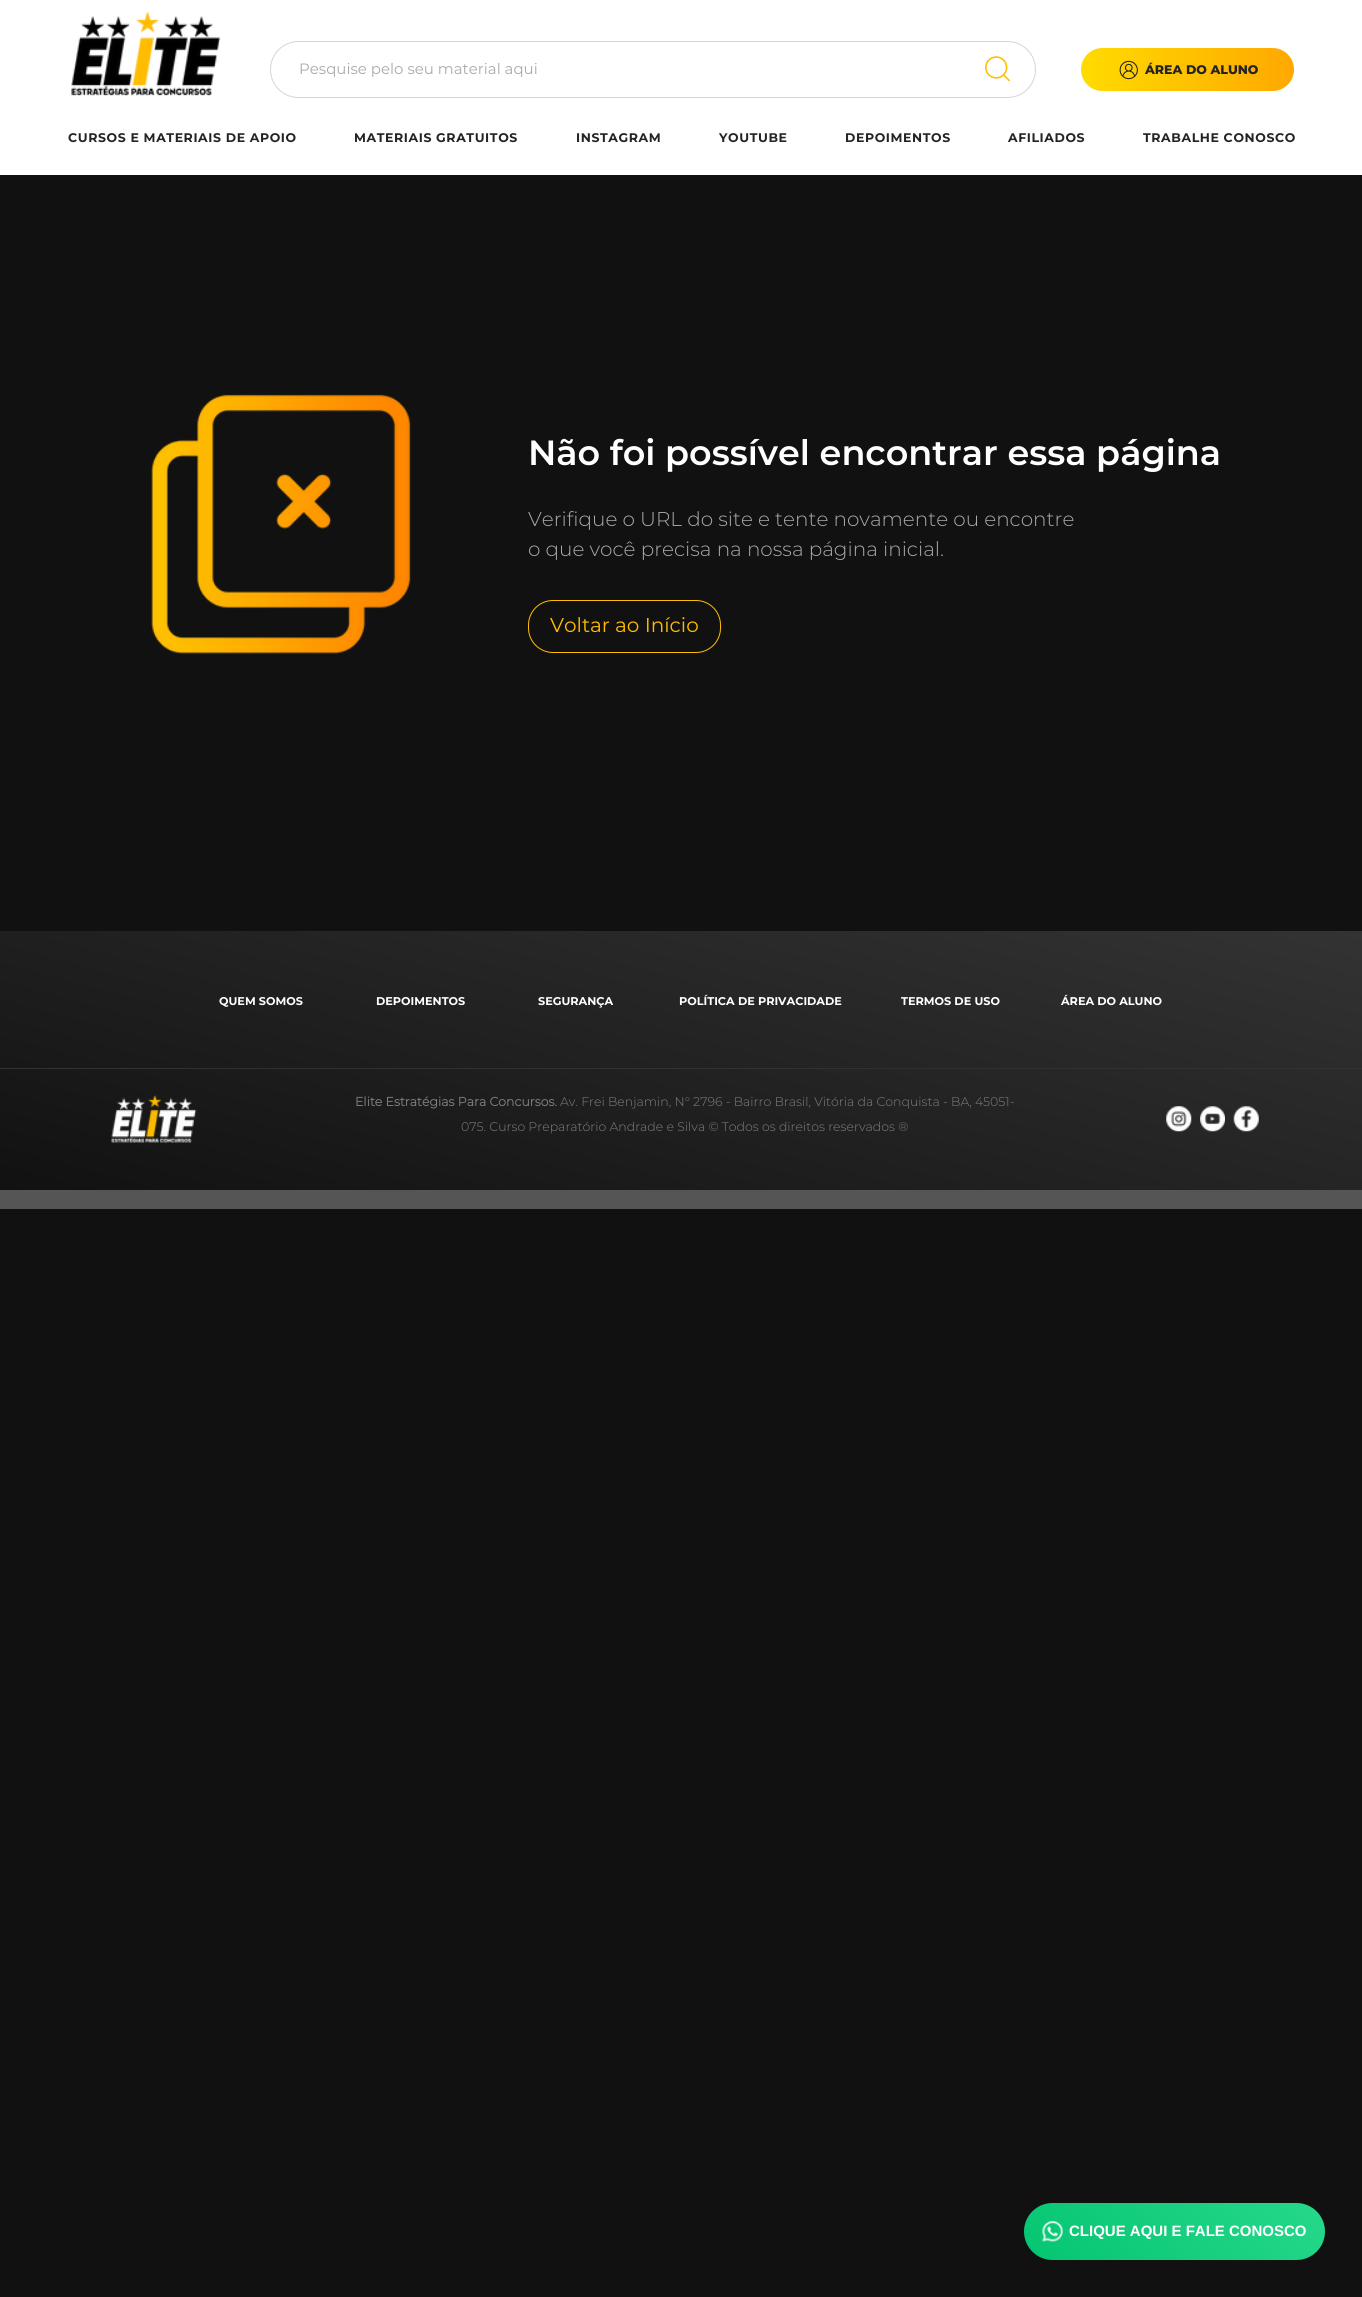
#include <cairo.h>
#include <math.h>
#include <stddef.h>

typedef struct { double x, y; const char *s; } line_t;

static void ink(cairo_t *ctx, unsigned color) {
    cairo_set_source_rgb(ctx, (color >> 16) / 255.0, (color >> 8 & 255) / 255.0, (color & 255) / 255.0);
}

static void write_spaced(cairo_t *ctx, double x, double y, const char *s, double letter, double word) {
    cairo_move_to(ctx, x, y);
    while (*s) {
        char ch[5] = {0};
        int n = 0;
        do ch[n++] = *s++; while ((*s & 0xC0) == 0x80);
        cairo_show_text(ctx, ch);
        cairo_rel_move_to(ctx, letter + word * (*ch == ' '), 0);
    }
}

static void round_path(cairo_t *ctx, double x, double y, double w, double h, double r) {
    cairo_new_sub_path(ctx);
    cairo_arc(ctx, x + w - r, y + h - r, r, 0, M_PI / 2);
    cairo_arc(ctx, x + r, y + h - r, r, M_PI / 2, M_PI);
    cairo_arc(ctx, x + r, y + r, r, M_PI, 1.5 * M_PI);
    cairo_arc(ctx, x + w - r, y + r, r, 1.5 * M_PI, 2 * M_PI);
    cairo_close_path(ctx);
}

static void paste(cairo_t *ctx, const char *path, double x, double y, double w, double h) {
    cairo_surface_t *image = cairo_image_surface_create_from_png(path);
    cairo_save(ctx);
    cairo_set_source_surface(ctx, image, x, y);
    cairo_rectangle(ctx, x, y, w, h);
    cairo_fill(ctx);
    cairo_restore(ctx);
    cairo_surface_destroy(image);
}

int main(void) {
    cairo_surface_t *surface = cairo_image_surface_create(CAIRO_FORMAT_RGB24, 1362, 2297);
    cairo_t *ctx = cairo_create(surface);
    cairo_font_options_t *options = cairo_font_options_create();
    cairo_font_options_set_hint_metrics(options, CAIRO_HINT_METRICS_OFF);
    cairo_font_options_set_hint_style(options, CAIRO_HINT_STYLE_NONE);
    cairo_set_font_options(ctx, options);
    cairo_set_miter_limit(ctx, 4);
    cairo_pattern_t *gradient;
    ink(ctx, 0x111111);
    cairo_paint(ctx);
    ink(ctx, 0xFFFFFF);
    cairo_rectangle(ctx, 0, 0, 1362, 175);
    cairo_fill(ctx);
    paste(ctx, "media/1.png", 71, 11, 150, 85);
    gradient = cairo_pattern_create_linear(1081, 69, 1294, 69);
    cairo_pattern_add_color_stop_rgba(gradient, 0, 1, 0.859, 0, 1);
    cairo_pattern_add_color_stop_rgba(gradient, 1, 1, 0.659, 0, 1);
    cairo_set_source(ctx, gradient);
    cairo_pattern_destroy(gradient);
    round_path(ctx, 1081, 48, 213, 43, 21.5);
    cairo_fill(ctx);
    paste(ctx, "media/2.png", 1119, 60, 19, 20);
    cairo_select_font_face(ctx, "Montserrat ExtraBold", CAIRO_FONT_SLANT_NORMAL, CAIRO_FONT_WEIGHT_NORMAL);
    cairo_set_font_size(ctx, 12.5);
    ink(ctx, 0x242424);
    cairo_move_to(ctx, 1145, 74);
    cairo_show_text(ctx, "ÁREA DO ALUNO");
    cairo_select_font_face(ctx, "Montserrat", CAIRO_FONT_SLANT_NORMAL, CAIRO_FONT_WEIGHT_BOLD);
    {
        static const line_t items[] = {
            {68, 142, "CURSOS E MATERIAIS DE APOIO"},
            {354, 142, "MATERIAIS GRATUITOS"},
            {576, 142, "INSTAGRAM"},
            {719, 142, "YOUTUBE"},
            {845, 142, "DEPOIMENTOS"},
            {1008, 142, "AFILIADOS"},
            {1143, 142, "TRABALHE CONOSCO"},
        };
        for (size_t i = 0; i < sizeof items / sizeof *items; i++) {
            write_spaced(ctx, items[i].x, items[i].y, items[i].s, 0.6, 0);
        }
    }
    round_path(ctx, 270.5, 41.5, 765, 56, 28);
    ink(ctx, 0xD5D5D5);
    cairo_set_line_width(ctx, 1);
    cairo_stroke(ctx);
    cairo_select_font_face(ctx, "Montserrat", CAIRO_FONT_SLANT_NORMAL, CAIRO_FONT_WEIGHT_NORMAL);
    cairo_set_font_size(ctx, 15);
    ink(ctx, 0xAAAAAA);
    cairo_move_to(ctx, 299, 74);
    cairo_show_text(ctx, "Pesquise pelo seu material aqui");
    paste(ctx, "media/3.png", 985, 56, 25, 26);
    paste(ctx, "media/4.png", 151, 394, 260, 260);
    cairo_select_font_face(ctx, "Montserrat SemiBold", CAIRO_FONT_SLANT_NORMAL, CAIRO_FONT_WEIGHT_NORMAL);
    cairo_set_font_size(ctx, 35);
    ink(ctx, 0xFFFFFF);
    cairo_move_to(ctx, 528, 465);
    cairo_show_text(ctx, "Não foi possível encontrar essa página");
    cairo_select_font_face(ctx, "Montserrat Light", CAIRO_FONT_SLANT_NORMAL, CAIRO_FONT_WEIGHT_NORMAL);
    cairo_set_font_size(ctx, 20);
    ink(ctx, 0xAAAAAA);
    cairo_move_to(ctx, 528, 526);
    cairo_show_text(ctx, "Verifique o URL do site e tente novamente ou encontre");
    cairo_move_to(ctx, 528, 556);
    cairo_show_text(ctx, "o que você precisa na nossa página inicial.");
    round_path(ctx, 528.5, 600.5, 192, 52, 24.5);
    ink(ctx, 0xFFBC00);
    cairo_stroke(ctx);
    cairo_select_font_face(ctx, "Montserrat", CAIRO_FONT_SLANT_NORMAL, CAIRO_FONT_WEIGHT_NORMAL);
    cairo_move_to(ctx, 550, 632);
    cairo_show_text(ctx, "Voltar ao Início");
    gradient = cairo_pattern_create_linear(759, 770, 603, 1352);
    cairo_pattern_add_color_stop_rgba(gradient, 0, 0.204, 0.2, 0.2, 1);
    cairo_pattern_add_color_stop_rgba(gradient, 1, 0.067, 0.067, 0.067, 1);
    cairo_set_source(ctx, gradient);
    cairo_pattern_destroy(gradient);
    cairo_rectangle(ctx, 0, 931, 1362, 259);
    cairo_fill(ctx);
    cairo_select_font_face(ctx, "Montserrat", CAIRO_FONT_SLANT_NORMAL, CAIRO_FONT_WEIGHT_BOLD);
    cairo_set_font_size(ctx, 11.25);
    ink(ctx, 0xFFFFFF);
    {
        static const line_t items[] = {
            {219, 1005, "QUEM SOMOS"},
            {376, 1005, "DEPOIMENTOS"},
            {538, 1005, "SEGURANÇA"},
            {679, 1005, "POLÍTICA DE PRIVACIDADE"},
            {901, 1005, "TERMOS DE USO"},
            {1061, 1005, "ÁREA DO ALUNO"},
        };
        for (size_t i = 0; i < sizeof items / sizeof *items; i++) {
            cairo_move_to(ctx, items[i].x, items[i].y);
            cairo_show_text(ctx, items[i].s);
        }
    }
    ink(ctx, 0x313131);
    cairo_rectangle(ctx, 0, 1068, 1362, 1);
    cairo_fill(ctx);
    paste(ctx, "media/5.png", 111, 1095, 86, 48);
    cairo_select_font_face(ctx, "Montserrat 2", CAIRO_FONT_SLANT_NORMAL, CAIRO_FONT_WEIGHT_BOLD);
    cairo_set_font_size(ctx, 12.5);
    ink(ctx, 0x808080);
    cairo_move_to(ctx, 355, 1106);
    cairo_show_text(ctx, "Elite Estratégias Para Concursos.");
    cairo_select_font_face(ctx, "Montserrat Light", CAIRO_FONT_SLANT_NORMAL, CAIRO_FONT_WEIGHT_NORMAL);
    cairo_move_to(ctx, 560, 1106);
    cairo_show_text(ctx, "Av. Frei Benjamin, N° 2796 - Bairro Brasil, Vitória da Conquista - BA, 45051-");
    cairo_move_to(ctx, 461, 1131);
    cairo_show_text(ctx, "075. Curso Preparatório Andrade e Silva © Todos os direitos reservados ®");
    paste(ctx, "media/6.png", 1166, 1106, 26, 26);
    paste(ctx, "media/7.png", 1200, 1106, 25, 26);
    paste(ctx, "media/8.png", 1233, 1106, 26, 26);
    ink(ctx, 0x555555);
    cairo_rectangle(ctx, 0, 1190, 1362, 19);
    cairo_fill(ctx);
    gradient = cairo_pattern_create_linear(1146, 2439, 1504, 2081);
    cairo_pattern_add_color_stop_rgba(gradient, 0, 0, 0.761, 0.431, 1);
    cairo_pattern_add_color_stop_rgba(gradient, 1, 0.255, 0.91, 0.627, 1);
    cairo_set_source(ctx, gradient);
    cairo_pattern_destroy(gradient);
    round_path(ctx, 1024, 2203, 301, 57, 28.5);
    cairo_fill(ctx);
    paste(ctx, "media/9.png", 1042, 2221, 21, 21);
    cairo_select_font_face(ctx, "Liberation Sans", CAIRO_FONT_SLANT_NORMAL, CAIRO_FONT_WEIGHT_BOLD);
    cairo_set_font_size(ctx, 15);
    ink(ctx, 0xFFFFFF);
    cairo_move_to(ctx, 1069, 2236);
    cairo_show_text(ctx, "CLIQUE AQUI E FALE CONOSCO");
    cairo_surface_write_to_png(surface, "image.png");
    cairo_font_options_destroy(options);
    cairo_destroy(ctx);
    cairo_surface_destroy(surface);
    return 0;
}
